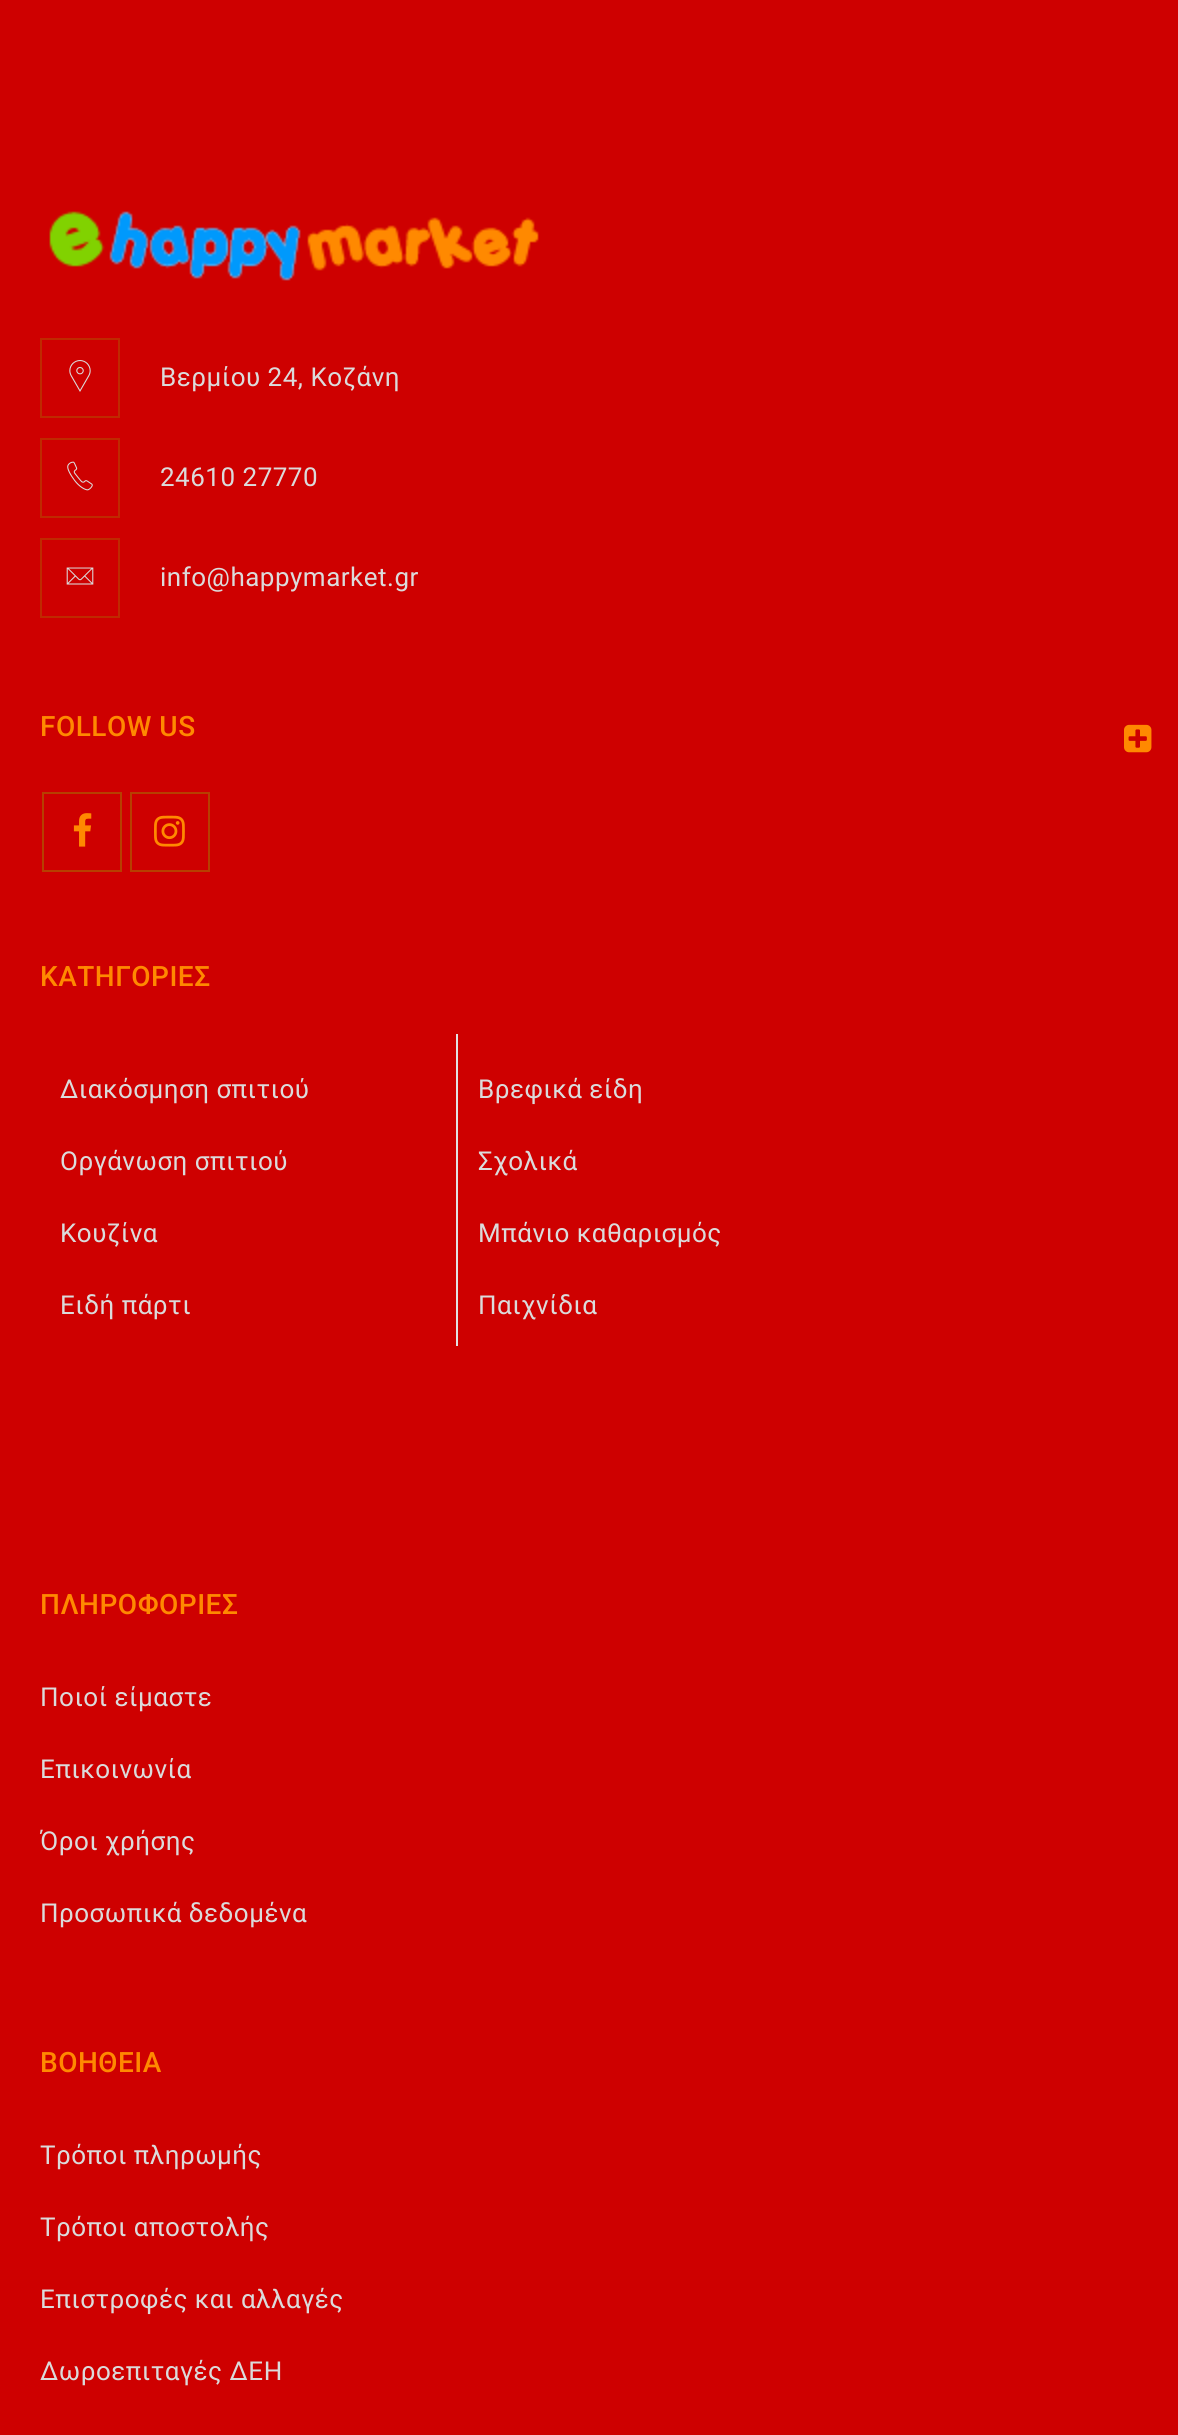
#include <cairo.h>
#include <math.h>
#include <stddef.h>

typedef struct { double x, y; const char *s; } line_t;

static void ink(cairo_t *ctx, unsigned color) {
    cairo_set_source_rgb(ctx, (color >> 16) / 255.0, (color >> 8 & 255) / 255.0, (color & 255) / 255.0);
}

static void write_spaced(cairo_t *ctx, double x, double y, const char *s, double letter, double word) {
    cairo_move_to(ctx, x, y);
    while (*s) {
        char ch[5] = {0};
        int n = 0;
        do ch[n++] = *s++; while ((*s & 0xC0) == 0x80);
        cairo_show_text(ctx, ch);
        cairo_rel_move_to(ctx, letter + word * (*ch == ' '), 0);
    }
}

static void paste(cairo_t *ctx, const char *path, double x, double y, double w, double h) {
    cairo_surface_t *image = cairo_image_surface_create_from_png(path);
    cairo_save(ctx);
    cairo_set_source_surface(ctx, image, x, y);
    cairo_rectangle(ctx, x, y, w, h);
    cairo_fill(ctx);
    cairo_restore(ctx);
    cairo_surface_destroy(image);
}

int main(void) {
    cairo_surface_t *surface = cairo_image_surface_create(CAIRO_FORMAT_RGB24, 1178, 2435);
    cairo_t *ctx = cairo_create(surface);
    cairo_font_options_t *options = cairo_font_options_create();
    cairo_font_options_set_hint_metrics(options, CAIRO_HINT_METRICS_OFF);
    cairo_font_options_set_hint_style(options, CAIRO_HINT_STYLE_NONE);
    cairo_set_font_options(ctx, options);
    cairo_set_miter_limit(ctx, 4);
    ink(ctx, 0xCE0000);
    cairo_paint(ctx);
    paste(ctx, "media/1.png", 49, 211, 490, 70);
    paste(ctx, "media/2.png", 69, 360, 22, 32);
    cairo_rectangle(ctx, 41, 339, 78, 78);
    ink(ctx, 0xBF2A00);
    cairo_stroke(ctx);
    cairo_select_font_face(ctx, "Roboto", CAIRO_FONT_SLANT_NORMAL, CAIRO_FONT_WEIGHT_NORMAL);
    cairo_set_font_size(ctx, 26);
    ink(ctx, 0xDBDBDB);
    write_spaced(ctx, 160, 386, "Βερμίου 24, Κοζάνη", 0.5, 0);
    paste(ctx, "media/3.png", 67, 461, 26, 30);
    cairo_rectangle(ctx, 41, 439, 78, 78);
    ink(ctx, 0xBF2A00);
    cairo_stroke(ctx);
    ink(ctx, 0xDBDBDB);
    write_spaced(ctx, 160, 486, "24610 27770", 0.5, 0);
    paste(ctx, "media/4.png", 66, 567, 28, 18);
    cairo_rectangle(ctx, 41, 539, 78, 78);
    ink(ctx, 0xBF2A00);
    cairo_stroke(ctx);
    ink(ctx, 0xDBDBDB);
    write_spaced(ctx, 160, 586, "info@happymarket.gr", 0.5, 0);
    cairo_select_font_face(ctx, "Roboto Medium", CAIRO_FONT_SLANT_NORMAL, CAIRO_FONT_WEIGHT_NORMAL);
    cairo_set_font_size(ctx, 28);
    ink(ctx, 0xFF8900);
    write_spaced(ctx, 40, 736, "FOLLOW US", 0.5, 0);
    paste(ctx, "media/5.png", 1124, 724, 28, 29);
    paste(ctx, "media/6.png", 73, 813, 19, 34);
    cairo_rectangle(ctx, 43, 793, 78, 78);
    ink(ctx, 0xB73F00);
    cairo_stroke(ctx);
    paste(ctx, "media/7.png", 154, 815, 31, 32);
    cairo_rectangle(ctx, 131, 793, 78, 78);
    cairo_stroke(ctx);
    ink(ctx, 0xFF8900);
    write_spaced(ctx, 40, 986, "ΚΑΤΗΓΟΡΙΕΣ", 0.5, 0);
    cairo_select_font_face(ctx, "Roboto", CAIRO_FONT_SLANT_NORMAL, CAIRO_FONT_WEIGHT_NORMAL);
    cairo_set_font_size(ctx, 26);
    ink(ctx, 0xDBDBDB);
    {
        static const line_t items[] = {
            {60, 1098, "Διακόσμηση σπιτιού"},
            {60, 1170, "Οργάνωση σπιτιού"},
            {60, 1242, "Κουζίνα"},
            {60, 1314, "Ειδή πάρτι"},
        };
        for (size_t i = 0; i < sizeof items / sizeof *items; i++) {
            write_spaced(ctx, items[i].x, items[i].y, items[i].s, 0.5, 0);
        }
    }
    ink(ctx, 0xE2E2E2);
    cairo_rectangle(ctx, 456, 1034, 2, 312);
    cairo_fill(ctx);
    ink(ctx, 0xDBDBDB);
    {
        static const line_t items[] = {
            {478, 1098, "Βρεφικά είδη"},
            {478, 1170, "Σχολικά"},
            {478, 1242, "Μπάνιο καθαρισμός"},
            {478, 1314, "Παιχνίδια"},
        };
        for (size_t i = 0; i < sizeof items / sizeof *items; i++) {
            write_spaced(ctx, items[i].x, items[i].y, items[i].s, 0.5, 0);
        }
    }
    cairo_select_font_face(ctx, "Roboto Medium", CAIRO_FONT_SLANT_NORMAL, CAIRO_FONT_WEIGHT_NORMAL);
    cairo_set_font_size(ctx, 28);
    ink(ctx, 0xFF8900);
    write_spaced(ctx, 40, 1614, "ΠΛΗΡΟΦΟΡΙΕΣ", 0.5, 0);
    cairo_select_font_face(ctx, "Roboto", CAIRO_FONT_SLANT_NORMAL, CAIRO_FONT_WEIGHT_NORMAL);
    cairo_set_font_size(ctx, 26);
    ink(ctx, 0xDBDBDB);
    {
        static const line_t items[] = {
            {40, 1706, "Ποιοί είμαστε"},
            {40, 1778, "Επικοινωνία"},
            {40, 1850, "Όροι χρήσης"},
            {40, 1922, "Προσωπικά δεδομένα"},
        };
        for (size_t i = 0; i < sizeof items / sizeof *items; i++) {
            write_spaced(ctx, items[i].x, items[i].y, items[i].s, 0.5, 0);
        }
    }
    cairo_select_font_face(ctx, "Roboto Medium", CAIRO_FONT_SLANT_NORMAL, CAIRO_FONT_WEIGHT_NORMAL);
    cairo_set_font_size(ctx, 28);
    ink(ctx, 0xFF8900);
    write_spaced(ctx, 40, 2072, "ΒΟΗΘΕΙΑ", 0.5, 0);
    cairo_select_font_face(ctx, "Roboto", CAIRO_FONT_SLANT_NORMAL, CAIRO_FONT_WEIGHT_NORMAL);
    cairo_set_font_size(ctx, 26);
    ink(ctx, 0xDBDBDB);
    {
        static const line_t items[] = {
            {40, 2164, "Τρόποι πληρωμής"},
            {40, 2236, "Τρόποι αποστολής"},
            {40, 2308, "Επιστροφές και αλλαγές"},
            {40, 2380, "Δωροεπιταγές ΔΕΗ"},
        };
        for (size_t i = 0; i < sizeof items / sizeof *items; i++) {
            write_spaced(ctx, items[i].x, items[i].y, items[i].s, 0.5, 0);
        }
    }
    cairo_surface_write_to_png(surface, "image.png");
    cairo_font_options_destroy(options);
    cairo_destroy(ctx);
    cairo_surface_destroy(surface);
    return 0;
}
